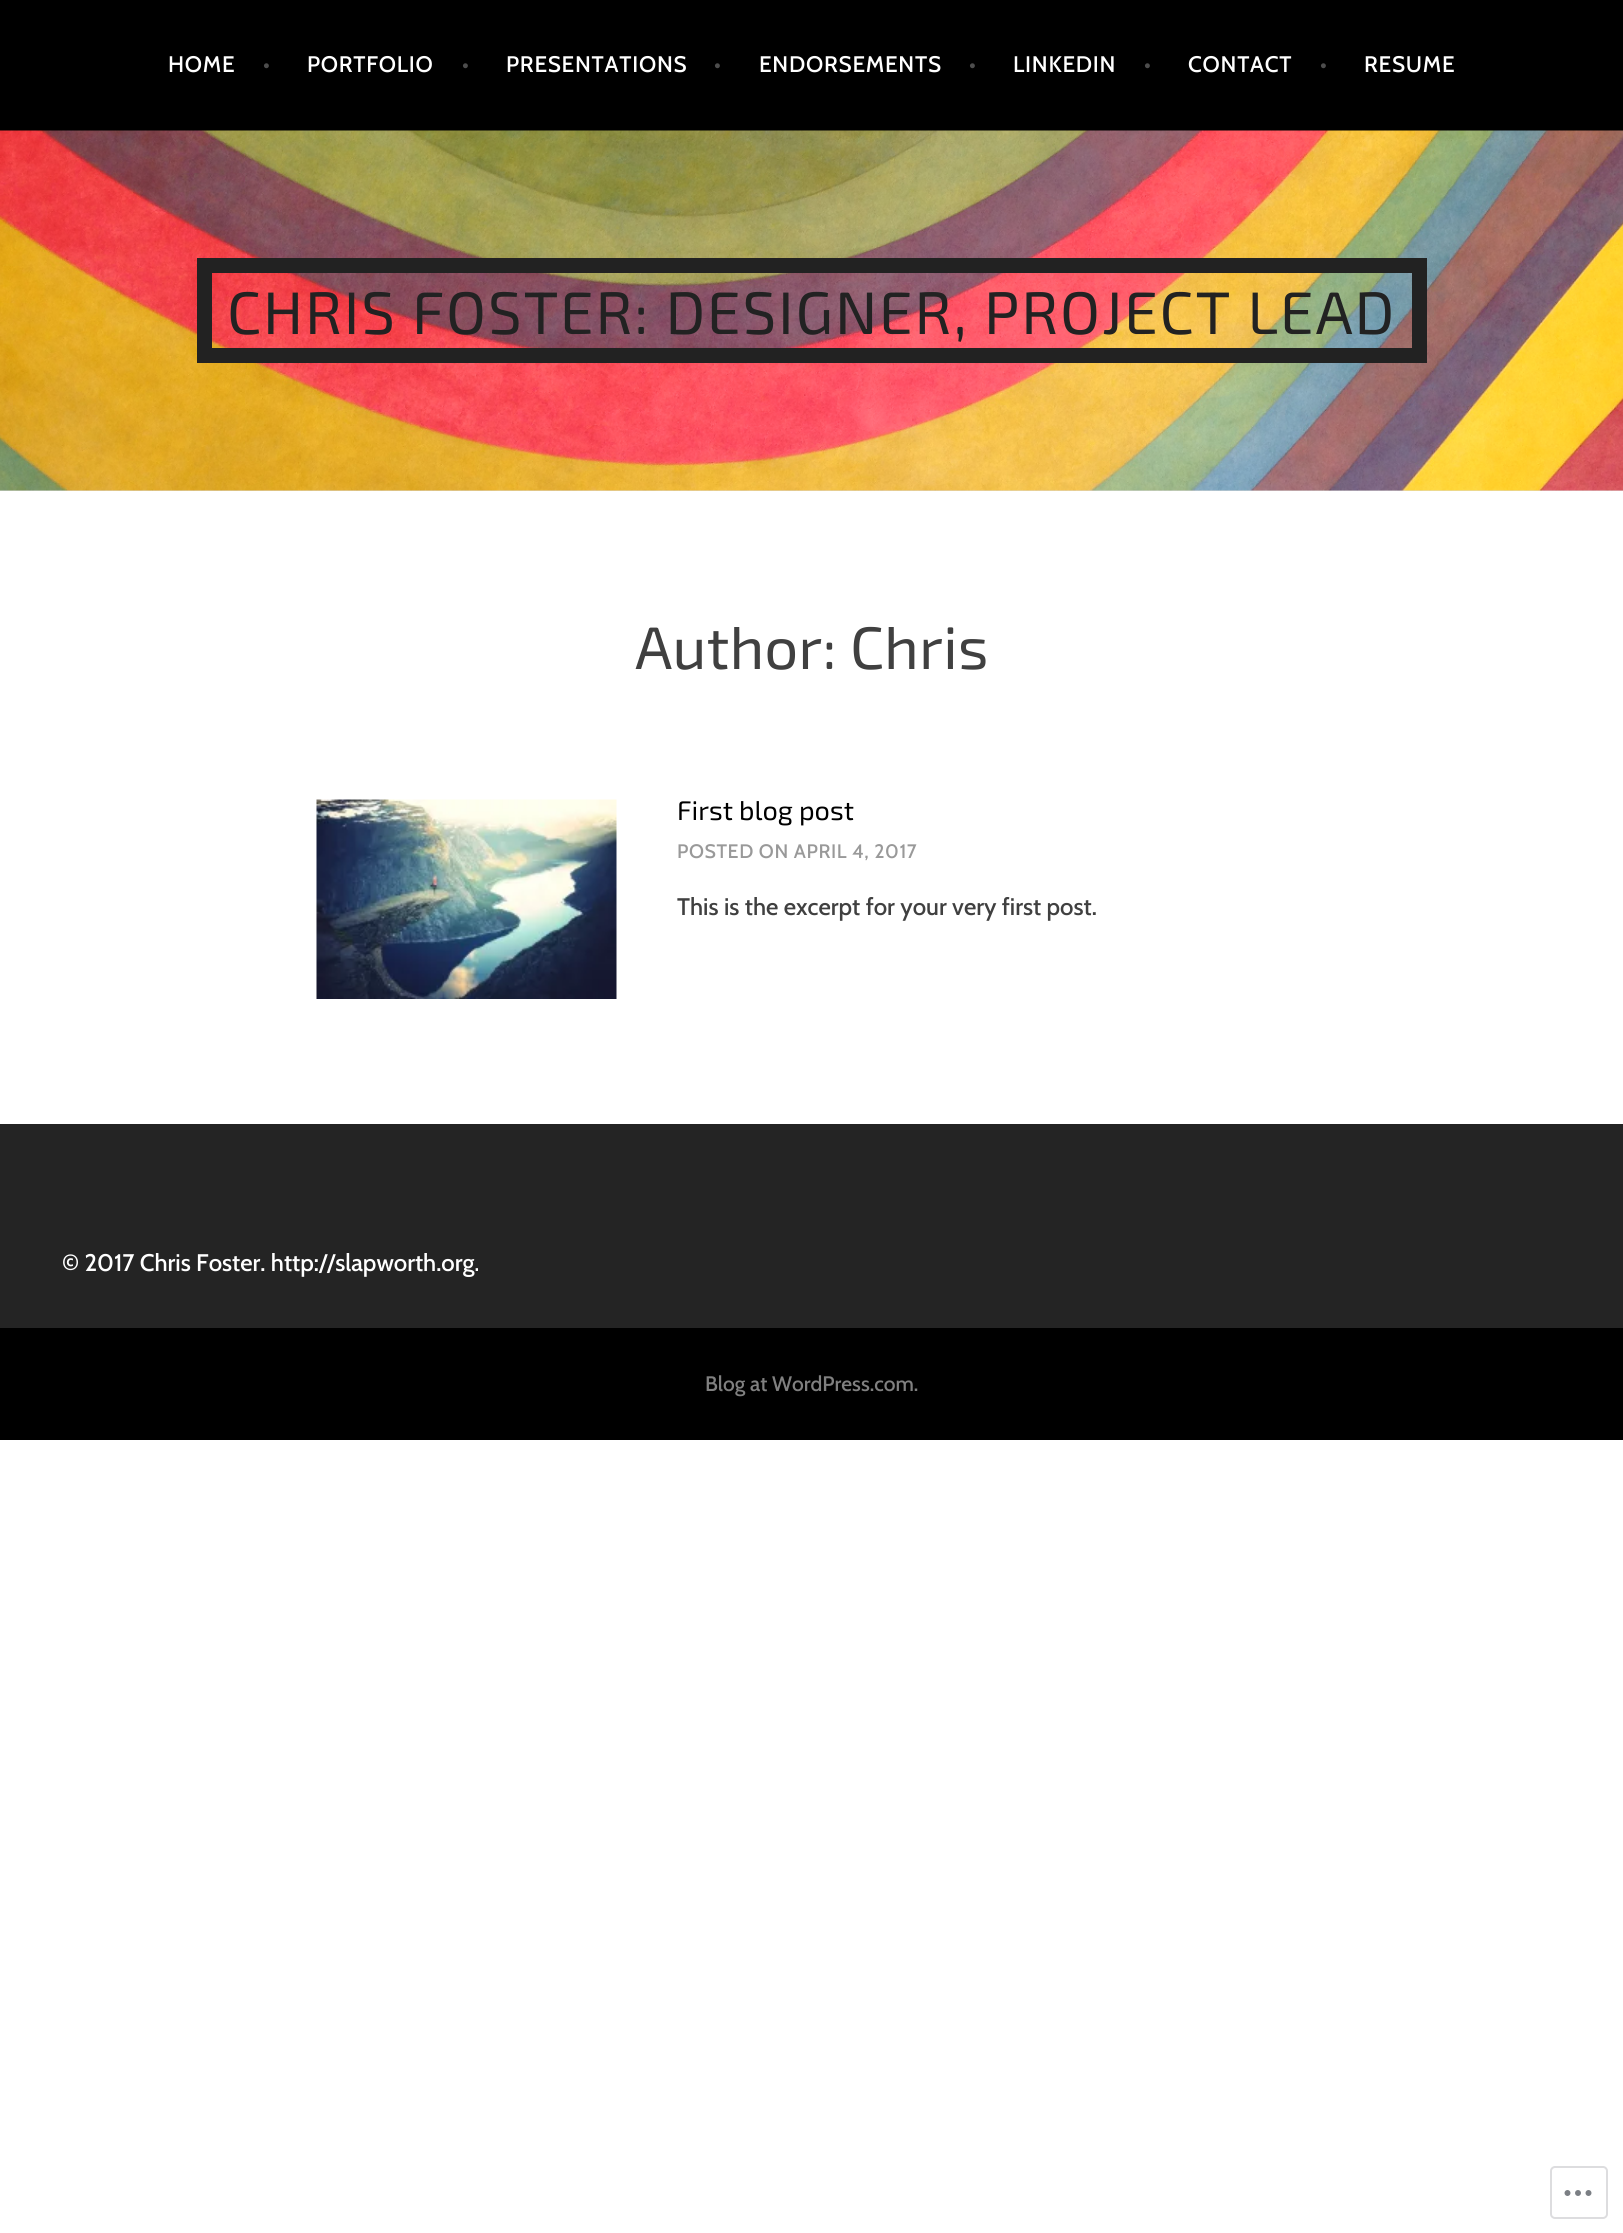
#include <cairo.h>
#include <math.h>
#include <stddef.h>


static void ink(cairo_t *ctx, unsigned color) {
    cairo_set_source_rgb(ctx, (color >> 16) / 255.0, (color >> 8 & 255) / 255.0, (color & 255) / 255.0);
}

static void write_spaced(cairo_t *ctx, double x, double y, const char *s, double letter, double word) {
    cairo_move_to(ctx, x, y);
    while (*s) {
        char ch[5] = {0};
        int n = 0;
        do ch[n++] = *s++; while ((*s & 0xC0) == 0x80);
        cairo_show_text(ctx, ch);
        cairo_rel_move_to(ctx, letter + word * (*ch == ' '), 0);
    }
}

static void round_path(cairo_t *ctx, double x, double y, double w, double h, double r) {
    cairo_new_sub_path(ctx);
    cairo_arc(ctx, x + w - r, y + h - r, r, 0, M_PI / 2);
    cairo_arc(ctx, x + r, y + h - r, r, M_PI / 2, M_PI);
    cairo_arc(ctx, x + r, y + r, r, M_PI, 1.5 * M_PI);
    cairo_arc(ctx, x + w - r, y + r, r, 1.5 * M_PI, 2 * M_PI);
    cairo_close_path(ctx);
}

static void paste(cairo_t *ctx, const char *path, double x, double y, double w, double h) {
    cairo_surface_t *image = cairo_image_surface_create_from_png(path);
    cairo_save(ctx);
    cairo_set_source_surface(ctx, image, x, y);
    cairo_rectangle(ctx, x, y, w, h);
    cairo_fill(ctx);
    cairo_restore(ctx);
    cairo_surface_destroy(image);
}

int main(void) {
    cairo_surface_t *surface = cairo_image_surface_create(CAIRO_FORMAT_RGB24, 1623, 2233);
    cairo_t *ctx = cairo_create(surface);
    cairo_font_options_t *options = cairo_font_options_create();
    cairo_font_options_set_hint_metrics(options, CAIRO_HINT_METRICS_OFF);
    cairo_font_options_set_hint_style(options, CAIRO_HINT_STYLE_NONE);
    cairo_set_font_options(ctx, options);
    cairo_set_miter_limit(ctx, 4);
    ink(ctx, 0xFFFFFF);
    cairo_paint(ctx);
    ink(ctx, 0x000000);
    cairo_rectangle(ctx, 0, 0, 1623, 131);
    cairo_fill(ctx);
    cairo_select_font_face(ctx, "Cabin Medium", CAIRO_FONT_SLANT_NORMAL, CAIRO_FONT_WEIGHT_NORMAL);
    cairo_set_font_size(ctx, 22.5);
    ink(ctx, 0xFFFFFF);
    write_spaced(ctx, 168, 72, "HOME", 0.75, 0);
    ink(ctx, 0x4D4D4D);
    write_spaced(ctx, 263, 72, "•", 0.75, 0);
    ink(ctx, 0xFFFFFF);
    write_spaced(ctx, 307, 72, "PORTFOLIO", 0.75, 0);
    ink(ctx, 0x4D4D4D);
    write_spaced(ctx, 462, 72, "•", 0.75, 0);
    ink(ctx, 0xFFFFFF);
    write_spaced(ctx, 506, 72, "PRESENTATIONS", 0.75, 0);
    ink(ctx, 0x4D4D4D);
    write_spaced(ctx, 714, 72, "•", 0.75, 0);
    ink(ctx, 0xFFFFFF);
    write_spaced(ctx, 759, 72, "ENDORSEMENTS", 0.75, 0);
    ink(ctx, 0x4D4D4D);
    write_spaced(ctx, 969, 72, "•", 0.75, 0);
    ink(ctx, 0xFFFFFF);
    write_spaced(ctx, 1013, 72, "LINKEDIN", 0.75, 0);
    ink(ctx, 0x4D4D4D);
    write_spaced(ctx, 1144, 72, "•", 0.75, 0);
    ink(ctx, 0xFFFFFF);
    write_spaced(ctx, 1188, 72, "CONTACT", 0.75, 0);
    ink(ctx, 0x4D4D4D);
    write_spaced(ctx, 1320, 72, "•", 0.75, 0);
    ink(ctx, 0xFFFFFF);
    write_spaced(ctx, 1364, 72, "RESUME", 0.75, 0);
    ink(ctx, 0xDADADA);
    cairo_rectangle(ctx, 0, 490, 1623, 1);
    cairo_fill(ctx);
    paste(ctx, "media/1.png", 0, 130, 1623, 361);
    cairo_rectangle(ctx, 204.5, 265.5, 1215, 90);
    ink(ctx, 0x222222);
    cairo_set_line_width(ctx, 15);
    cairo_stroke(ctx);
    cairo_select_font_face(ctx, "Exo 2", CAIRO_FONT_SLANT_NORMAL, CAIRO_FONT_WEIGHT_NORMAL);
    cairo_set_font_size(ctx, 60);
    write_spaced(ctx, 227, 334, "CHRIS FOSTER: DESIGNER, PROJECT LEAD", 1.8, 0);
    ink(ctx, 0x404040);
    cairo_move_to(ctx, 635, 669);
    cairo_show_text(ctx, "Author: Chris");
    paste(ctx, "media/2.png", 316, 799, 301, 200);
    cairo_set_font_size(ctx, 27);
    ink(ctx, 0x000000);
    cairo_move_to(ctx, 677, 820);
    cairo_show_text(ctx, "First blog post");
    cairo_select_font_face(ctx, "Cabin Medium", CAIRO_FONT_SLANT_NORMAL, CAIRO_FONT_WEIGHT_NORMAL);
    cairo_set_font_size(ctx, 19.5);
    ink(ctx, 0x999999);
    write_spaced(ctx, 677, 858, "POSTED ON APRIL 4, 2017", 0.6, 0);
    cairo_set_font_size(ctx, 24);
    ink(ctx, 0x404040);
    cairo_move_to(ctx, 677, 915);
    cairo_show_text(ctx, "This is the excerpt for your very first post.");
    ink(ctx, 0x242424);
    cairo_rectangle(ctx, 0, 1124, 1623, 204);
    cairo_fill(ctx);
    ink(ctx, 0xFFFFFF);
    cairo_move_to(ctx, 62, 1271);
    cairo_show_text(ctx, "© 2017 Chris Foster. http://slapworth.org.");
    ink(ctx, 0x000000);
    cairo_rectangle(ctx, 0, 1328, 1623, 112);
    cairo_fill(ctx);
    cairo_set_font_size(ctx, 21);
    ink(ctx, 0x808080);
    cairo_move_to(ctx, 705, 1391);
    cairo_show_text(ctx, "Blog at WordPress.com.");
    round_path(ctx, 1551, 2167, 56, 51, 4);
    ink(ctx, 0xDDDDDF);
    cairo_set_line_width(ctx, 2);
    cairo_stroke(ctx);
    paste(ctx, "media/3.png", 1564, 2190, 28, 6);
    cairo_surface_write_to_png(surface, "image.png");
    cairo_font_options_destroy(options);
    cairo_destroy(ctx);
    cairo_surface_destroy(surface);
    return 0;
}
